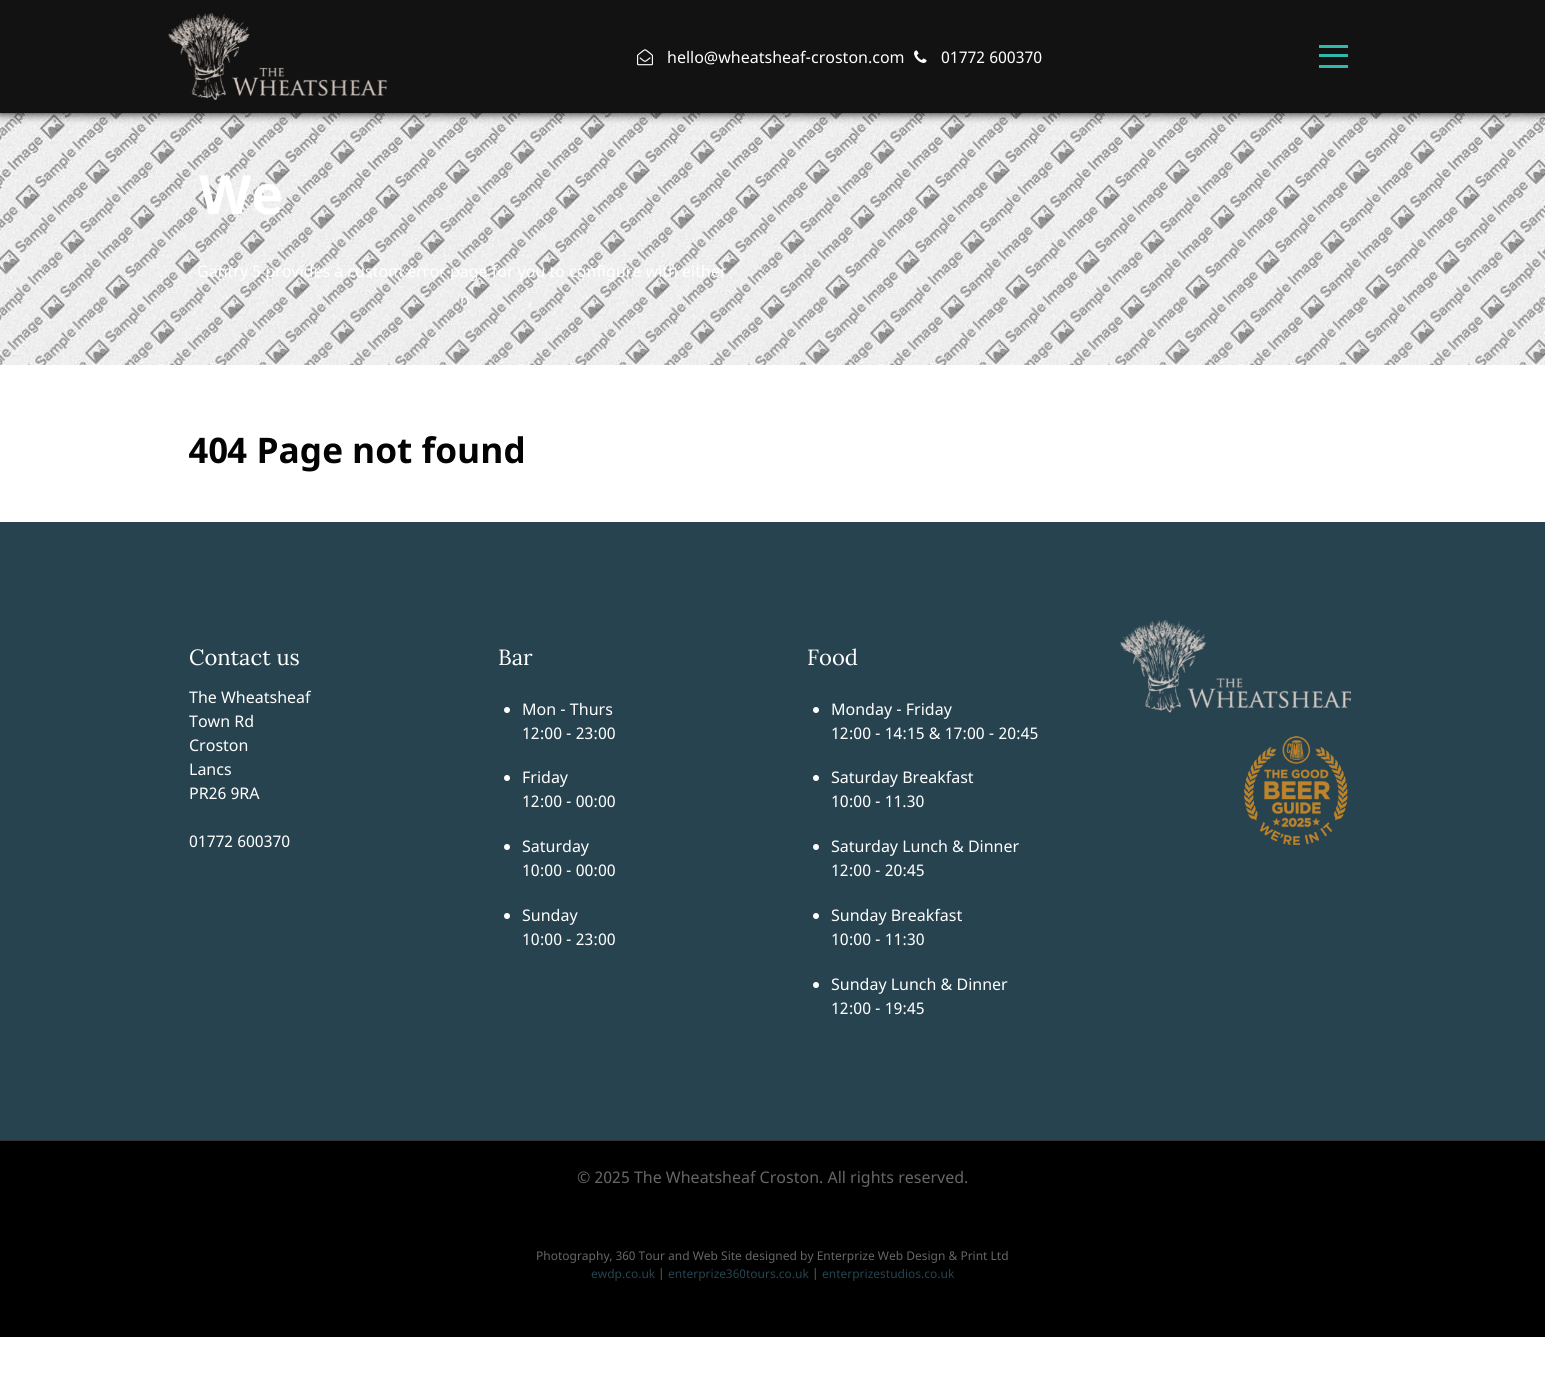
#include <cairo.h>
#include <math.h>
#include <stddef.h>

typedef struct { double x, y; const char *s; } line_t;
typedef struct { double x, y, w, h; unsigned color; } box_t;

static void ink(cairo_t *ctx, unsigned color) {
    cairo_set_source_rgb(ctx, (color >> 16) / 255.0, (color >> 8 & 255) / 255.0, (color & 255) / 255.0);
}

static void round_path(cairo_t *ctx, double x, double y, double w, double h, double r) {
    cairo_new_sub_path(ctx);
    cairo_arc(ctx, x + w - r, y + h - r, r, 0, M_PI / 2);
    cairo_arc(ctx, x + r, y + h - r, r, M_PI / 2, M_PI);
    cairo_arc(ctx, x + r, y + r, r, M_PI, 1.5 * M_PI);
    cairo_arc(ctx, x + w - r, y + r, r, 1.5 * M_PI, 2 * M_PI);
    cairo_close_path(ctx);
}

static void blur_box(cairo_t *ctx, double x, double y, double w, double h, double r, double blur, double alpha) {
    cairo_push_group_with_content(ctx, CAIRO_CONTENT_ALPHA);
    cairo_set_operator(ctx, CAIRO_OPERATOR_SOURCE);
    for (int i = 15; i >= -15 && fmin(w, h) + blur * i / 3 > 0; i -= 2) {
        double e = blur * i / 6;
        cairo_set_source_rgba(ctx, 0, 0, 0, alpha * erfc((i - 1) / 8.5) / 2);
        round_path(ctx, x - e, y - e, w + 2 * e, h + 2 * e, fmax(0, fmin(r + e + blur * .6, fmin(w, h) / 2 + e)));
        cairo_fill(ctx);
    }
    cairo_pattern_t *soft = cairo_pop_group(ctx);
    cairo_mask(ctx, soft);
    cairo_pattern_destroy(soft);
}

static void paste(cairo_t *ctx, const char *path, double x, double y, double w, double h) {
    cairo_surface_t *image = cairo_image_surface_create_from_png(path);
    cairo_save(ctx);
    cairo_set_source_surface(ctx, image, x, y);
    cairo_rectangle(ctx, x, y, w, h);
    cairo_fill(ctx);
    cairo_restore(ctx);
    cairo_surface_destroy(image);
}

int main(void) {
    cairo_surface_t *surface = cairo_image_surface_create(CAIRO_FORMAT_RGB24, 1545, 1387);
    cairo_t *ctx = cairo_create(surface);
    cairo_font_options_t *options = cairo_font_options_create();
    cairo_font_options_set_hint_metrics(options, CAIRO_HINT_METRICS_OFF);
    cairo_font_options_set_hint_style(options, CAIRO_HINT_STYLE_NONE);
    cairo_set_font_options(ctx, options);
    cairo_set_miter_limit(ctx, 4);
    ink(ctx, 0xFFFFFF);
    cairo_paint(ctx);
    paste(ctx, "media/4.png", 0, 113, 1545, 252);
    ink(ctx, 0x000000);
    blur_box(ctx, 0, 0, 1545, 113, 0, 5, 1);
    ink(ctx, 0x121212);
    cairo_rectangle(ctx, 0, 0, 1545, 113);
    cairo_fill(ctx);
    paste(ctx, "media/1.png", 168, 13, 219, 88);
    paste(ctx, "media/2.png", 637, 49, 16, 17);
    cairo_select_font_face(ctx, "Noto Sans", CAIRO_FONT_SLANT_NORMAL, CAIRO_FONT_WEIGHT_NORMAL);
    cairo_set_font_size(ctx, 16);
    ink(ctx, 0xFFFFFF);
    cairo_move_to(ctx, 667, 63);
    cairo_show_text(ctx, "hello@wheatsheaf-croston.com");
    paste(ctx, "media/3.png", 914, 50, 13, 13);
    cairo_move_to(ctx, 941, 63);
    cairo_show_text(ctx, "01772 600370");
    {
        static const box_t items[] = {
            {1319, 45, 29, 3, 0x2FB8AC},
            {1319, 54, 29, 3, 0x2FB8AC},
            {1319, 65, 29, 3, 0x2FB8AC},
        };
        for (size_t i = 0; i < sizeof items / sizeof *items; i++) {
            ink(ctx, items[i].color);
            cairo_rectangle(ctx, items[i].x, items[i].y, items[i].w, items[i].h);
            cairo_fill(ctx);
        }
    }
    cairo_select_font_face(ctx, "Noto Sans", CAIRO_FONT_SLANT_NORMAL, CAIRO_FONT_WEIGHT_BOLD);
    cairo_set_font_size(ctx, 54);
    ink(ctx, 0xFFFFFF);
    cairo_move_to(ctx, 199, 214);
    cairo_show_text(ctx, "We");
    cairo_select_font_face(ctx, "Noto Sans", CAIRO_FONT_SLANT_NORMAL, CAIRO_FONT_WEIGHT_NORMAL);
    cairo_set_font_size(ctx, 16);
    {
        static const line_t items[] = {
            {197, 277, "Gantry 5 provides a custom error page for you to configure with either"},
            {460, 305, "n"},
            {528, 305, ","},
        };
        for (size_t i = 0; i < sizeof items / sizeof *items; i++) {
            cairo_move_to(ctx, items[i].x, items[i].y);
            cairo_show_text(ctx, items[i].s);
        }
    }
    cairo_select_font_face(ctx, "Noto Sans", CAIRO_FONT_SLANT_NORMAL, CAIRO_FONT_WEIGHT_BOLD);
    cairo_set_font_size(ctx, 35.25);
    ink(ctx, 0x030303);
    cairo_move_to(ctx, 189, 463);
    cairo_show_text(ctx, "404 Page not found");
    ink(ctx, 0x274350);
    cairo_rectangle(ctx, 0, 522, 1545, 618);
    cairo_fill(ctx);
    cairo_select_font_face(ctx, "Lora", CAIRO_FONT_SLANT_NORMAL, CAIRO_FONT_WEIGHT_NORMAL);
    cairo_set_font_size(ctx, 22);
    ink(ctx, 0xFFFFFF);
    cairo_move_to(ctx, 189, 665);
    cairo_show_text(ctx, "Contact us");
    cairo_select_font_face(ctx, "Noto Sans", CAIRO_FONT_SLANT_NORMAL, CAIRO_FONT_WEIGHT_NORMAL);
    cairo_set_font_size(ctx, 16);
    {
        static const line_t items[] = {
            {189, 703, "The Wheatsheaf"},
            {189, 727, "Town Rd"},
            {189, 751, "Croston"},
            {189, 775, "Lancs"},
            {189, 799, "PR26 9RA"},
            {189, 847, "01772 600370"},
        };
        for (size_t i = 0; i < sizeof items / sizeof *items; i++) {
            cairo_move_to(ctx, items[i].x, items[i].y);
            cairo_show_text(ctx, items[i].s);
        }
    }
    cairo_select_font_face(ctx, "Lora", CAIRO_FONT_SLANT_NORMAL, CAIRO_FONT_WEIGHT_NORMAL);
    cairo_set_font_size(ctx, 22);
    cairo_move_to(ctx, 498, 665);
    cairo_show_text(ctx, "Bar");
    cairo_new_path(ctx);
    cairo_arc(ctx, 507, 710, 3, 0, 2 * M_PI);
    cairo_fill(ctx);
    cairo_select_font_face(ctx, "Noto Sans", CAIRO_FONT_SLANT_NORMAL, CAIRO_FONT_WEIGHT_NORMAL);
    cairo_set_font_size(ctx, 16);
    cairo_move_to(ctx, 522, 715);
    cairo_show_text(ctx, "Mon - Thurs");
    cairo_move_to(ctx, 522, 739);
    cairo_show_text(ctx, "12:00 - 23:00");
    cairo_new_path(ctx);
    cairo_arc(ctx, 507, 778, 3, 0, 2 * M_PI);
    cairo_fill(ctx);
    cairo_move_to(ctx, 522, 783);
    cairo_show_text(ctx, "Friday");
    cairo_move_to(ctx, 522, 807);
    cairo_show_text(ctx, "12:00 - 00:00");
    cairo_new_path(ctx);
    cairo_arc(ctx, 507, 847, 3, 0, 2 * M_PI);
    cairo_fill(ctx);
    cairo_move_to(ctx, 522, 852);
    cairo_show_text(ctx, "Saturday");
    cairo_move_to(ctx, 522, 876);
    cairo_show_text(ctx, "10:00 - 00:00");
    cairo_new_path(ctx);
    cairo_arc(ctx, 507, 916, 3, 0, 2 * M_PI);
    cairo_fill(ctx);
    cairo_move_to(ctx, 522, 921);
    cairo_show_text(ctx, "Sunday");
    cairo_move_to(ctx, 522, 945);
    cairo_show_text(ctx, "10:00 - 23:00");
    cairo_select_font_face(ctx, "Lora", CAIRO_FONT_SLANT_NORMAL, CAIRO_FONT_WEIGHT_NORMAL);
    cairo_set_font_size(ctx, 22);
    cairo_move_to(ctx, 807, 665);
    cairo_show_text(ctx, "Food");
    cairo_new_path(ctx);
    cairo_arc(ctx, 816, 710, 3, 0, 2 * M_PI);
    cairo_fill(ctx);
    cairo_select_font_face(ctx, "Noto Sans", CAIRO_FONT_SLANT_NORMAL, CAIRO_FONT_WEIGHT_NORMAL);
    cairo_set_font_size(ctx, 16);
    cairo_move_to(ctx, 831, 715);
    cairo_show_text(ctx, "Monday - Friday");
    cairo_move_to(ctx, 831, 739);
    cairo_show_text(ctx, "12:00 - 14:15 & 17:00 - 20:45");
    cairo_new_path(ctx);
    cairo_arc(ctx, 816, 778, 3, 0, 2 * M_PI);
    cairo_fill(ctx);
    cairo_move_to(ctx, 831, 783);
    cairo_show_text(ctx, "Saturday Breakfast");
    cairo_move_to(ctx, 831, 807);
    cairo_show_text(ctx, "10:00 - 11.30");
    cairo_new_path(ctx);
    cairo_arc(ctx, 816, 847, 3, 0, 2 * M_PI);
    cairo_fill(ctx);
    cairo_move_to(ctx, 831, 852);
    cairo_show_text(ctx, "Saturday Lunch & Dinner");
    cairo_move_to(ctx, 831, 876);
    cairo_show_text(ctx, "12:00 - 20:45");
    cairo_new_path(ctx);
    cairo_arc(ctx, 816, 916, 3, 0, 2 * M_PI);
    cairo_fill(ctx);
    cairo_move_to(ctx, 831, 921);
    cairo_show_text(ctx, "Sunday Breakfast");
    cairo_move_to(ctx, 831, 945);
    cairo_show_text(ctx, "10:00 - 11:30");
    cairo_new_path(ctx);
    cairo_arc(ctx, 816, 985, 3, 0, 2 * M_PI);
    cairo_fill(ctx);
    cairo_move_to(ctx, 831, 990);
    cairo_show_text(ctx, "Sunday Lunch & Dinner");
    cairo_move_to(ctx, 831, 1014);
    cairo_show_text(ctx, "12:00 - 19:45");
    paste(ctx, "media/5.png", 1120, 620, 231, 225);
    ink(ctx, 0x000000);
    cairo_rectangle(ctx, 0, 1141, 1545, 196);
    cairo_fill(ctx);
    ink(ctx, 0x333333);
    cairo_rectangle(ctx, 0, 1140, 1545, 1);
    cairo_fill(ctx);
    ink(ctx, 0x666666);
    cairo_move_to(ctx, 577, 1183);
    cairo_show_text(ctx, "© 2025 The Wheatsheaf Croston. All rights reserved.");
    cairo_set_font_size(ctx, 12);
    cairo_move_to(ctx, 536, 1260);
    cairo_show_text(ctx, "Photography, 360 Tour and Web Site designed by Enterprize Web Design & Print Ltd");
    ink(ctx, 0x274350);
    cairo_move_to(ctx, 591, 1278);
    cairo_show_text(ctx, "ewdp.co.uk");
    ink(ctx, 0x666666);
    cairo_move_to(ctx, 658, 1278);
    cairo_show_text(ctx, "|");
    ink(ctx, 0x274350);
    cairo_move_to(ctx, 668, 1278);
    cairo_show_text(ctx, "enterprize360tours.co.uk");
    ink(ctx, 0x666666);
    cairo_move_to(ctx, 812, 1278);
    cairo_show_text(ctx, "|");
    ink(ctx, 0x274350);
    cairo_move_to(ctx, 822, 1278);
    cairo_show_text(ctx, "enterprizestudios.co.uk");
    cairo_surface_write_to_png(surface, "image.png");
    cairo_font_options_destroy(options);
    cairo_destroy(ctx);
    cairo_surface_destroy(surface);
    return 0;
}
